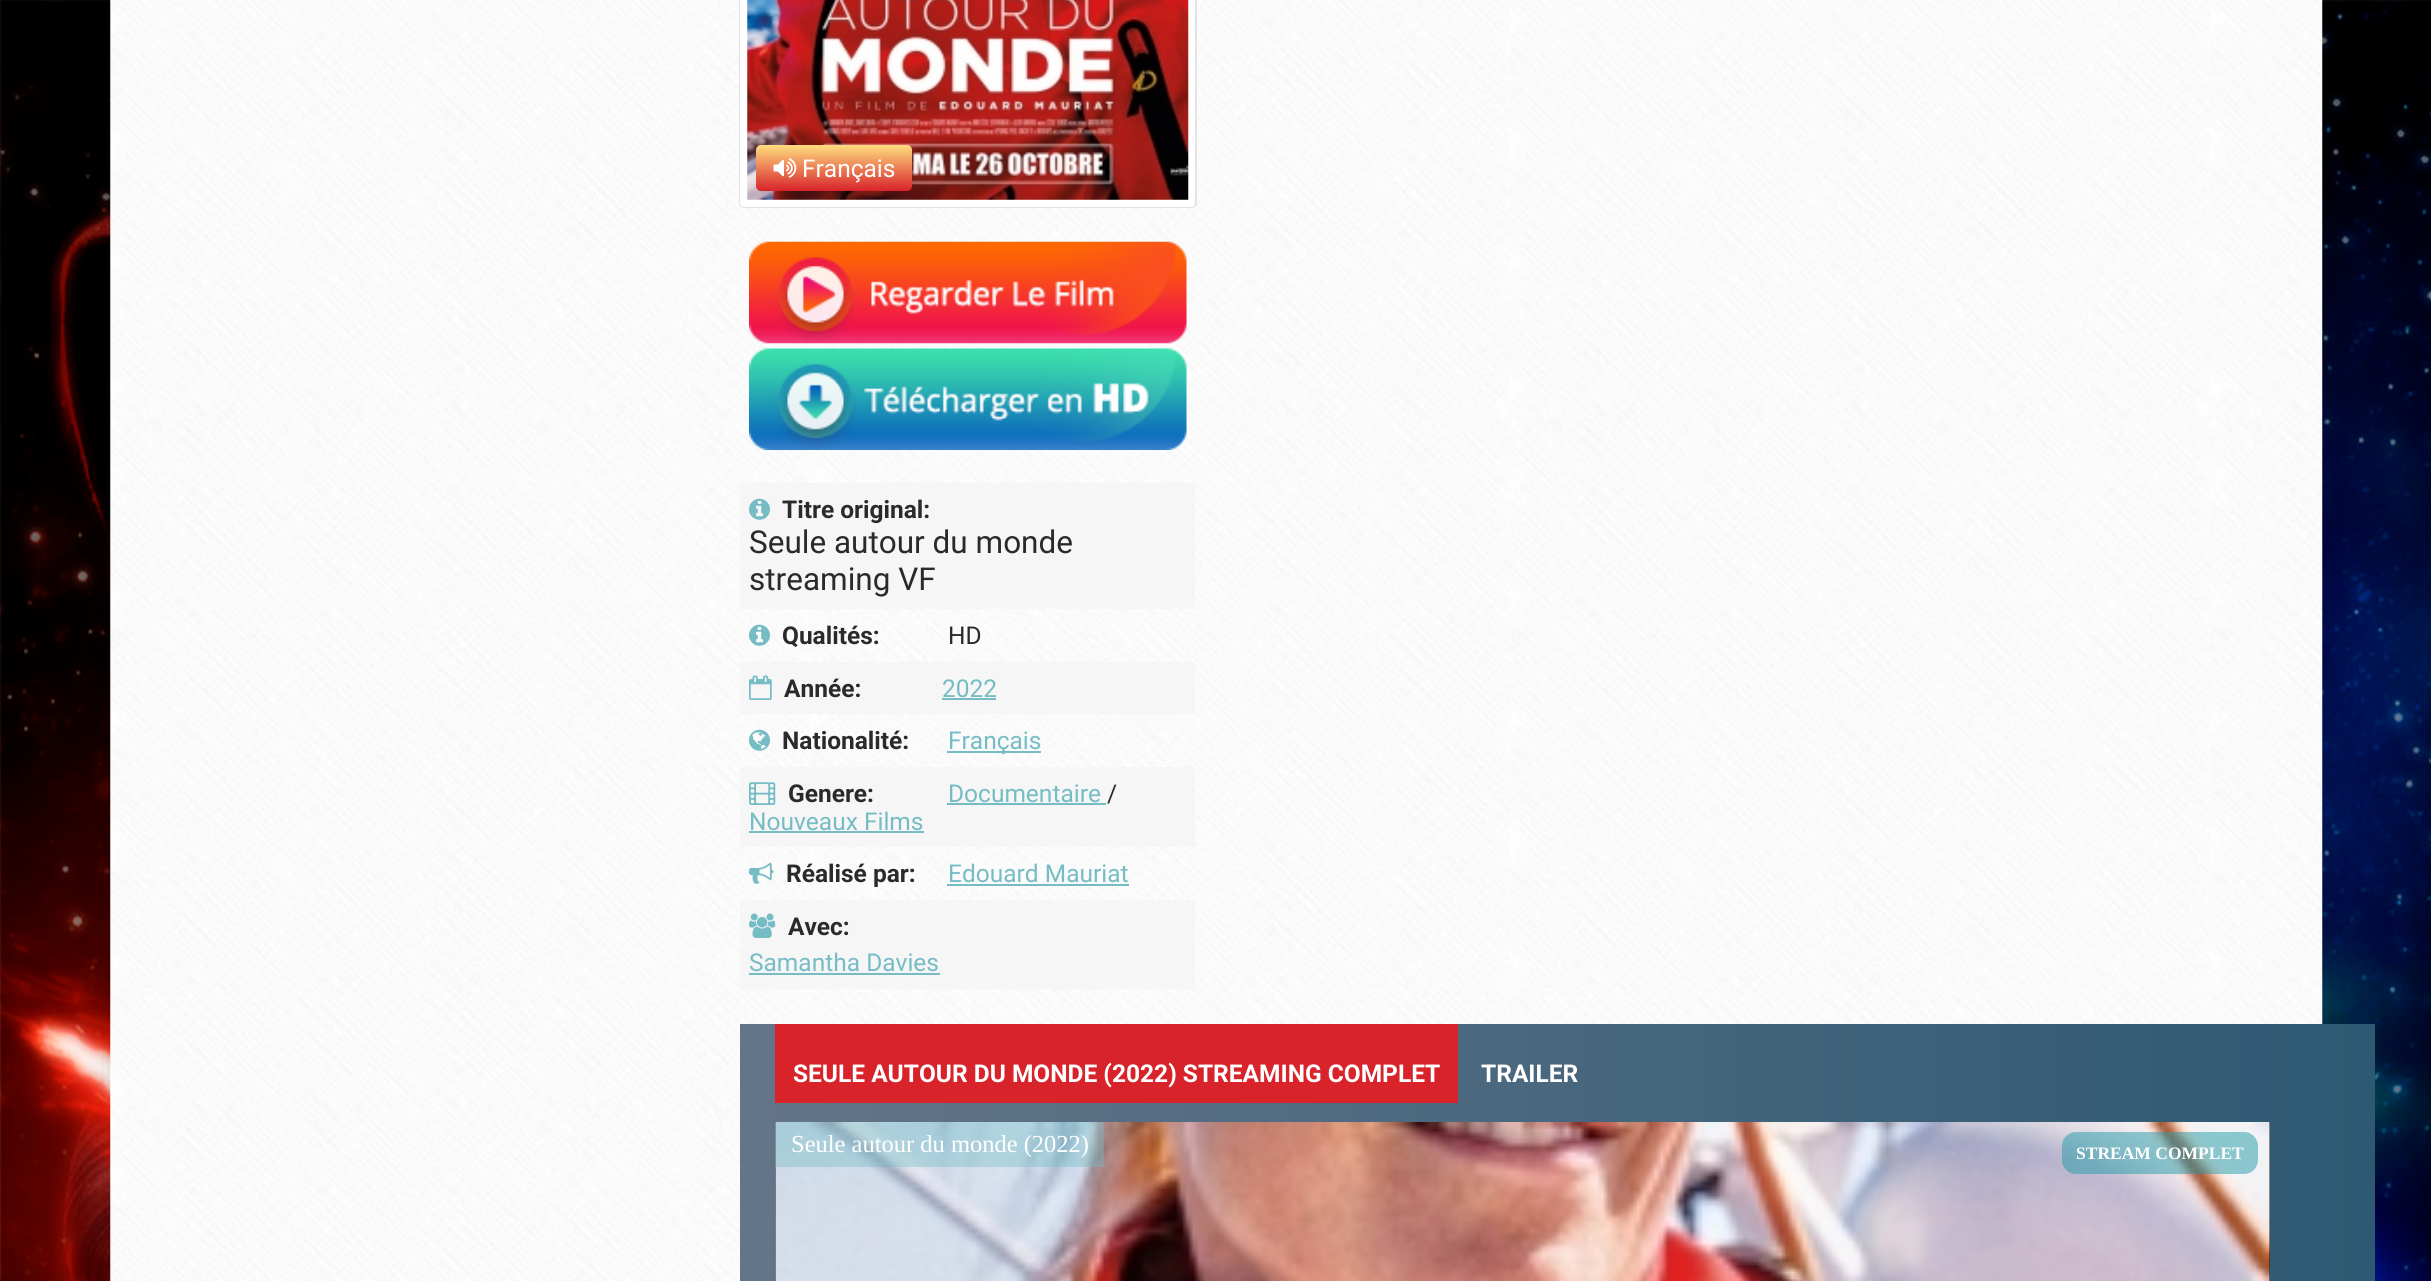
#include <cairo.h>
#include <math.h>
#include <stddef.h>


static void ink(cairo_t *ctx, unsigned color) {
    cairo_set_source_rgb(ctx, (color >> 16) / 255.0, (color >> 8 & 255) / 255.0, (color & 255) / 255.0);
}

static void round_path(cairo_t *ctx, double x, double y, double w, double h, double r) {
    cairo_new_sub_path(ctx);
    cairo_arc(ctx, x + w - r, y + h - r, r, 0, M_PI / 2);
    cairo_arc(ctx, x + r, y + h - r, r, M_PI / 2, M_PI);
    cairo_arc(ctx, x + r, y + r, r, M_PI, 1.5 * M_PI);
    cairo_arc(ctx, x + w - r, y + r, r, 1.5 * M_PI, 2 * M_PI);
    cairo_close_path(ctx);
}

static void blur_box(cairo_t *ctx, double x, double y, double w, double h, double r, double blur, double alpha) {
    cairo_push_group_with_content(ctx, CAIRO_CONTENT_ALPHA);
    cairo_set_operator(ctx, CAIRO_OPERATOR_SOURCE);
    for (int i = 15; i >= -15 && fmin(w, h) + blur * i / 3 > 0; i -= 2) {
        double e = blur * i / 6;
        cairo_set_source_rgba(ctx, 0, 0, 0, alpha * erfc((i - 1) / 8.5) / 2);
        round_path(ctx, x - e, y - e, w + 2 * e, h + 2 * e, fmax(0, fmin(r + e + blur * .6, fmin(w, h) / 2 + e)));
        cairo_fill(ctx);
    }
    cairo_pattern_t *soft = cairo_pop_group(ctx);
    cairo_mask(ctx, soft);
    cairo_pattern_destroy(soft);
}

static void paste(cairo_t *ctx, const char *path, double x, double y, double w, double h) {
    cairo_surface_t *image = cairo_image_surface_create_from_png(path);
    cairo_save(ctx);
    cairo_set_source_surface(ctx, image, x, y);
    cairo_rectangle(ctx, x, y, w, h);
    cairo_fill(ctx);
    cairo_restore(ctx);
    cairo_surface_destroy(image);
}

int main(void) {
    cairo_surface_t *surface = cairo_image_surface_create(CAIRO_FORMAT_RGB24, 2431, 1281);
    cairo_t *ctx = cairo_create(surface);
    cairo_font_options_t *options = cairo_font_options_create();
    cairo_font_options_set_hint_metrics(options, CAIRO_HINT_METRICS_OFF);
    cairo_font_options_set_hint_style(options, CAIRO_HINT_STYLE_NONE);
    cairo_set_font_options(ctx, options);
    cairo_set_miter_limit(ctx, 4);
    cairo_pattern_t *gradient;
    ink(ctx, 0xFFFFFF);
    cairo_paint(ctx);
    paste(ctx, "media/1.png", 0, 0, 2431, 1281);
    ink(ctx, 0x000000);
    blur_box(ctx, 110, -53, 2212, 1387, 0, 17.5, 0.15);
    paste(ctx, "media/2.png", 110, 0, 2213, 1281);
    round_path(ctx, 740, -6, 456, 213, 4);
    ink(ctx, 0xE3E3E3);
    cairo_stroke(ctx);
    round_path(ctx, 743.5, -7.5, 448, 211, 0.5);
    ink(ctx, 0xFFFFFF);
    cairo_set_line_width(ctx, 7);
    cairo_stroke(ctx);
    paste(ctx, "media/3.png", 747, 0, 442, 200);
    gradient = cairo_pattern_create_linear(834, 145, 834, 191);
    cairo_pattern_add_color_stop_rgba(gradient, 0, 1, 0.867, 0.502, 1);
    cairo_pattern_add_color_stop_rgba(gradient, 1, 0.847, 0.137, 0.165, 1);
    cairo_set_source(ctx, gradient);
    cairo_pattern_destroy(gradient);
    round_path(ctx, 756, 145, 156, 46, 5);
    cairo_fill(ctx);
    paste(ctx, "media/4.png", 773, 158, 24, 20);
    cairo_select_font_face(ctx, "Roboto", CAIRO_FONT_SLANT_NORMAL, CAIRO_FONT_WEIGHT_NORMAL);
    cairo_set_font_size(ctx, 24.5);
    ink(ctx, 0xFFFFFF);
    cairo_move_to(ctx, 802, 177);
    cairo_show_text(ctx, "Français");
    paste(ctx, "media/5.png", 749, 241, 438, 103);
    paste(ctx, "media/6.png", 749, 348, 438, 102);
    ink(ctx, 0xF6F6F6);
    cairo_rectangle(ctx, 740, 483, 455, 126);
    cairo_fill(ctx);
    paste(ctx, "media/7.png", 749, 498, 21, 22);
    cairo_select_font_face(ctx, "Roboto", CAIRO_FONT_SLANT_NORMAL, CAIRO_FONT_WEIGHT_BOLD);
    ink(ctx, 0x2A2A2A);
    cairo_move_to(ctx, 782, 518);
    cairo_show_text(ctx, "Titre original:");
    cairo_select_font_face(ctx, "Roboto", CAIRO_FONT_SLANT_NORMAL, CAIRO_FONT_WEIGHT_NORMAL);
    cairo_set_font_size(ctx, 31.5);
    cairo_move_to(ctx, 749, 553);
    cairo_show_text(ctx, "Seule autour du monde");
    cairo_move_to(ctx, 749, 590);
    cairo_show_text(ctx, "streaming VF");
    paste(ctx, "media/8.png", 749, 624, 21, 22);
    cairo_select_font_face(ctx, "Roboto", CAIRO_FONT_SLANT_NORMAL, CAIRO_FONT_WEIGHT_BOLD);
    cairo_set_font_size(ctx, 24.5);
    cairo_move_to(ctx, 782, 644);
    cairo_show_text(ctx, "Qualités:");
    cairo_select_font_face(ctx, "Roboto", CAIRO_FONT_SLANT_NORMAL, CAIRO_FONT_WEIGHT_NORMAL);
    cairo_move_to(ctx, 948, 644);
    cairo_show_text(ctx, "HD");
    ink(ctx, 0xF6F6F6);
    cairo_rectangle(ctx, 740, 662, 455, 52);
    cairo_fill(ctx);
    paste(ctx, "media/9.png", 749, 675, 23, 25);
    cairo_select_font_face(ctx, "Roboto", CAIRO_FONT_SLANT_NORMAL, CAIRO_FONT_WEIGHT_BOLD);
    ink(ctx, 0x2A2A2A);
    cairo_move_to(ctx, 784, 697);
    cairo_show_text(ctx, "Année:");
    cairo_select_font_face(ctx, "Roboto", CAIRO_FONT_SLANT_NORMAL, CAIRO_FONT_WEIGHT_NORMAL);
    ink(ctx, 0x75BCC4);
    cairo_move_to(ctx, 942, 697);
    cairo_show_text(ctx, "2022");
    cairo_rectangle(ctx, 942, 698, 54, 2);
    cairo_fill(ctx);
    paste(ctx, "media/10.png", 749, 729, 21, 22);
    cairo_select_font_face(ctx, "Roboto", CAIRO_FONT_SLANT_NORMAL, CAIRO_FONT_WEIGHT_BOLD);
    ink(ctx, 0x2A2A2A);
    cairo_move_to(ctx, 782, 749);
    cairo_show_text(ctx, "Nationalité:");
    ink(ctx, 0x75BCC4);
    cairo_rectangle(ctx, 947, 751, 94, 2);
    cairo_fill(ctx);
    cairo_select_font_face(ctx, "Roboto", CAIRO_FONT_SLANT_NORMAL, CAIRO_FONT_WEIGHT_NORMAL);
    cairo_move_to(ctx, 948, 749);
    cairo_show_text(ctx, "Français");
    ink(ctx, 0xF6F6F6);
    cairo_rectangle(ctx, 740, 767, 455, 80);
    cairo_fill(ctx);
    paste(ctx, "media/11.png", 749, 782, 27, 23);
    cairo_select_font_face(ctx, "Roboto", CAIRO_FONT_SLANT_NORMAL, CAIRO_FONT_WEIGHT_BOLD);
    ink(ctx, 0x2A2A2A);
    cairo_move_to(ctx, 788, 802);
    cairo_show_text(ctx, "Genere:");
    cairo_select_font_face(ctx, "Roboto", CAIRO_FONT_SLANT_NORMAL, CAIRO_FONT_WEIGHT_NORMAL);
    ink(ctx, 0x75BCC4);
    cairo_move_to(ctx, 948, 802);
    cairo_show_text(ctx, "Documentaire");
    cairo_rectangle(ctx, 947, 803, 159, 2);
    cairo_fill(ctx);
    ink(ctx, 0x2A2A2A);
    cairo_move_to(ctx, 1107, 802);
    cairo_show_text(ctx, "/");
    ink(ctx, 0x75BCC4);
    cairo_move_to(ctx, 749, 830);
    cairo_show_text(ctx, "Nouveaux Films");
    cairo_rectangle(ctx, 749, 831, 175, 2);
    cairo_fill(ctx);
    paste(ctx, "media/12.png", 749, 862, 25, 22);
    cairo_select_font_face(ctx, "Roboto", CAIRO_FONT_SLANT_NORMAL, CAIRO_FONT_WEIGHT_BOLD);
    ink(ctx, 0x2A2A2A);
    cairo_move_to(ctx, 786, 882);
    cairo_show_text(ctx, "Réalisé par:");
    cairo_select_font_face(ctx, "Roboto", CAIRO_FONT_SLANT_NORMAL, CAIRO_FONT_WEIGHT_NORMAL);
    ink(ctx, 0x75BCC4);
    cairo_move_to(ctx, 948, 882);
    cairo_show_text(ctx, "Edouard Mauriat");
    cairo_rectangle(ctx, 947, 884, 182, 2);
    cairo_fill(ctx);
    ink(ctx, 0xF6F6F6);
    cairo_rectangle(ctx, 740, 900, 455, 89);
    cairo_fill(ctx);
    paste(ctx, "media/13.png", 749, 913, 27, 25);
    cairo_select_font_face(ctx, "Roboto", CAIRO_FONT_SLANT_NORMAL, CAIRO_FONT_WEIGHT_BOLD);
    ink(ctx, 0x2A2A2A);
    cairo_move_to(ctx, 788, 935);
    cairo_show_text(ctx, "Avec:");
    cairo_select_font_face(ctx, "Roboto", CAIRO_FONT_SLANT_NORMAL, CAIRO_FONT_WEIGHT_NORMAL);
    ink(ctx, 0x75BCC4);
    cairo_move_to(ctx, 749, 971);
    cairo_show_text(ctx, "Samantha Davies");
    cairo_rectangle(ctx, 749, 973, 191, 2);
    cairo_fill(ctx);
    gradient = cairo_pattern_create_linear(740, 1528, 2375, 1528);
    cairo_pattern_add_color_stop_rgba(gradient, 0, 0.392, 0.459, 0.537, 1);
    cairo_pattern_add_color_stop_rgba(gradient, 1, 0.176, 0.349, 0.447, 1);
    cairo_set_source(ctx, gradient);
    cairo_pattern_destroy(gradient);
    cairo_rectangle(ctx, 740, 1024, 1635, 257);
    cairo_fill(ctx);
    ink(ctx, 0xD8232A);
    cairo_rectangle(ctx, 775, 1024, 683, 79);
    cairo_fill(ctx);
    cairo_select_font_face(ctx, "Roboto", CAIRO_FONT_SLANT_NORMAL, CAIRO_FONT_WEIGHT_BOLD);
    ink(ctx, 0xFFFFFF);
    cairo_move_to(ctx, 793, 1082);
    cairo_show_text(ctx, "SEULE AUTOUR DU MONDE (2022) STREAMING COMPLET");
    cairo_move_to(ctx, 1481, 1082);
    cairo_show_text(ctx, "TRAILER");
    ink(ctx, 0x000000);
    cairo_rectangle(ctx, 775, 1122, 1495, 159);
    cairo_fill(ctx);
    paste(ctx, "media/14.png", 775, 1122, 1495, 159);
    cairo_set_source_rgba(ctx, 0.459, 0.737, 0.769, 0.4);
    cairo_rectangle(ctx, 775, 1122, 329, 45);
    cairo_fill(ctx);
    cairo_select_font_face(ctx, "Liberation Serif", CAIRO_FONT_SLANT_NORMAL, CAIRO_FONT_WEIGHT_NORMAL);
    ink(ctx, 0xFFFFFF);
    cairo_move_to(ctx, 791, 1152);
    cairo_show_text(ctx, "Seule autour du monde (2022)");
    cairo_set_source_rgba(ctx, 0.137, 0.608, 0.659, 0.5);
    round_path(ctx, 2062, 1132, 196, 42, 14);
    cairo_fill(ctx);
    cairo_select_font_face(ctx, "Liberation Serif", CAIRO_FONT_SLANT_NORMAL, CAIRO_FONT_WEIGHT_BOLD);
    cairo_set_font_size(ctx, 17.5);
    ink(ctx, 0xFFFFFF);
    cairo_move_to(ctx, 2076, 1159);
    cairo_show_text(ctx, "STREAM COMPLET");
    cairo_surface_write_to_png(surface, "image.png");
    cairo_font_options_destroy(options);
    cairo_destroy(ctx);
    cairo_surface_destroy(surface);
    return 0;
}
